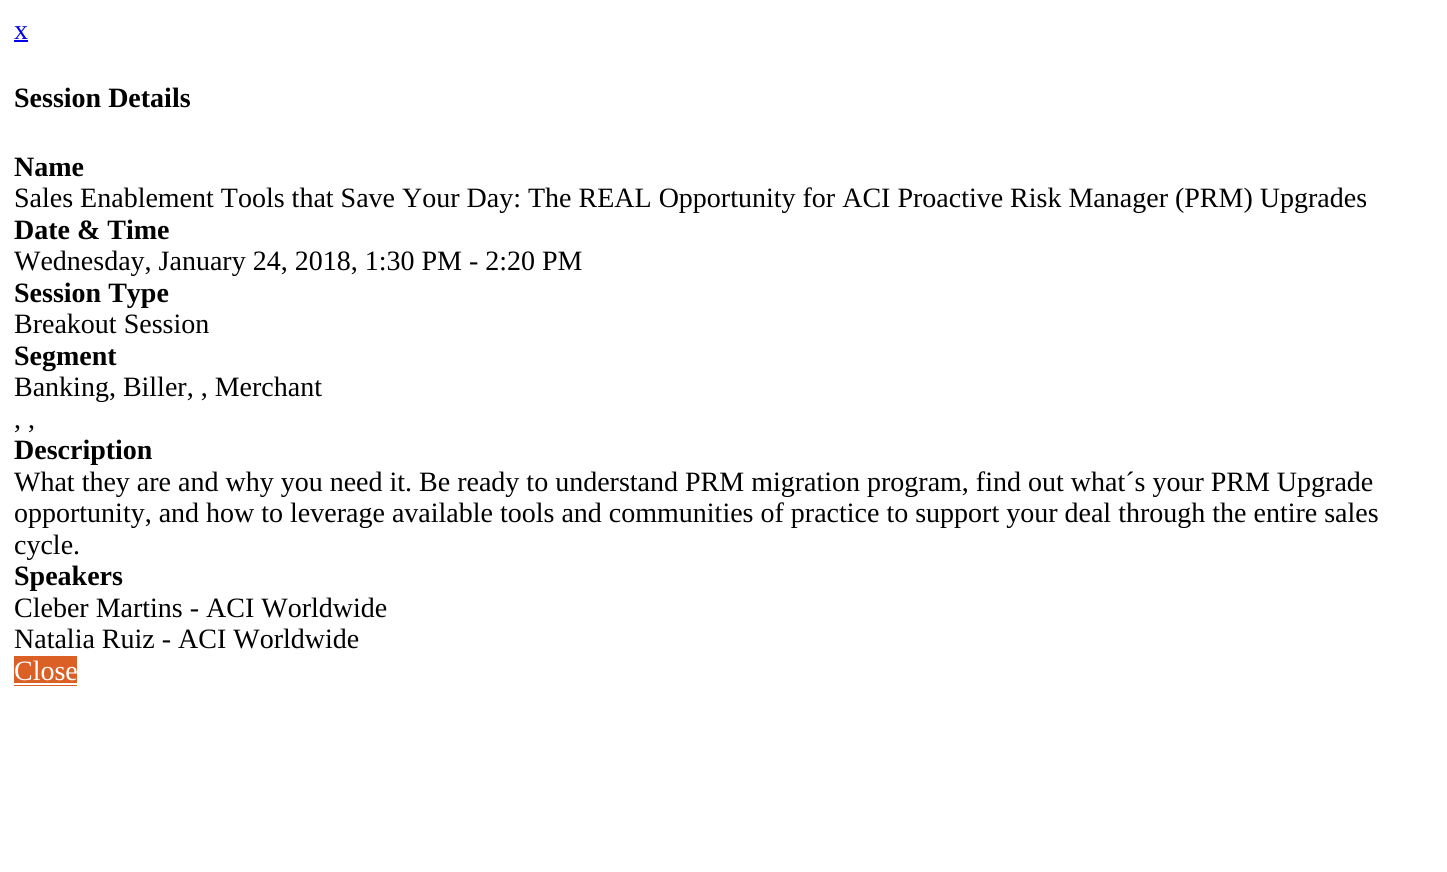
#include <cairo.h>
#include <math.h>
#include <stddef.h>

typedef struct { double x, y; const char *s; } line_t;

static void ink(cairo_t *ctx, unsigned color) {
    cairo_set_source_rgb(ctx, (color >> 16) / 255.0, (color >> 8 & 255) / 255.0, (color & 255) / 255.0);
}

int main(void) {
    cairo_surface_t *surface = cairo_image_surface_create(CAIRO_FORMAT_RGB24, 1447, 872);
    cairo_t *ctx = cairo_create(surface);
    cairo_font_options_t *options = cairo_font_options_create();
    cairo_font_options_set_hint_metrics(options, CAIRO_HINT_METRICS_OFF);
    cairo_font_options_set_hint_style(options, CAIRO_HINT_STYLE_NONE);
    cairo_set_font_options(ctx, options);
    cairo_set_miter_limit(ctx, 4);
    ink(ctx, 0xFFFFFF);
    cairo_paint(ctx);
    cairo_select_font_face(ctx, "Liberation Serif", CAIRO_FONT_SLANT_NORMAL, CAIRO_FONT_WEIGHT_NORMAL);
    cairo_set_font_size(ctx, 28);
    ink(ctx, 0x0000EE);
    cairo_move_to(ctx, 14, 39);
    cairo_show_text(ctx, "x");
    cairo_rectangle(ctx, 14, 40, 14, 2);
    cairo_fill(ctx);
    cairo_select_font_face(ctx, "Liberation Serif", CAIRO_FONT_SLANT_NORMAL, CAIRO_FONT_WEIGHT_BOLD);
    ink(ctx, 0x000000);
    cairo_move_to(ctx, 14, 107);
    cairo_show_text(ctx, "Session Details");
    cairo_move_to(ctx, 14, 176);
    cairo_show_text(ctx, "Name");
    cairo_select_font_face(ctx, "Liberation Serif", CAIRO_FONT_SLANT_NORMAL, CAIRO_FONT_WEIGHT_NORMAL);
    cairo_move_to(ctx, 14, 207);
    cairo_show_text(ctx, "Sales Enablement Tools that Save Your Day: The REAL Opportunity for ACI Proactive Risk Manager (PRM) Upgrades");
    cairo_select_font_face(ctx, "Liberation Serif", CAIRO_FONT_SLANT_NORMAL, CAIRO_FONT_WEIGHT_BOLD);
    cairo_move_to(ctx, 14, 239);
    cairo_show_text(ctx, "Date & Time");
    cairo_select_font_face(ctx, "Liberation Serif", CAIRO_FONT_SLANT_NORMAL, CAIRO_FONT_WEIGHT_NORMAL);
    cairo_move_to(ctx, 14, 270);
    cairo_show_text(ctx, "Wednesday, January 24, 2018, 1:30 PM - 2:20 PM");
    cairo_select_font_face(ctx, "Liberation Serif", CAIRO_FONT_SLANT_NORMAL, CAIRO_FONT_WEIGHT_BOLD);
    cairo_move_to(ctx, 14, 302);
    cairo_show_text(ctx, "Session Type");
    cairo_select_font_face(ctx, "Liberation Serif", CAIRO_FONT_SLANT_NORMAL, CAIRO_FONT_WEIGHT_NORMAL);
    cairo_move_to(ctx, 14, 333);
    cairo_show_text(ctx, "Breakout Session");
    cairo_select_font_face(ctx, "Liberation Serif", CAIRO_FONT_SLANT_NORMAL, CAIRO_FONT_WEIGHT_BOLD);
    cairo_move_to(ctx, 14, 365);
    cairo_show_text(ctx, "Segment");
    cairo_select_font_face(ctx, "Liberation Serif", CAIRO_FONT_SLANT_NORMAL, CAIRO_FONT_WEIGHT_NORMAL);
    cairo_move_to(ctx, 14, 396);
    cairo_show_text(ctx, "Banking, Biller, , Merchant");
    cairo_move_to(ctx, 14, 428);
    cairo_show_text(ctx, ", ,");
    cairo_select_font_face(ctx, "Liberation Serif", CAIRO_FONT_SLANT_NORMAL, CAIRO_FONT_WEIGHT_BOLD);
    cairo_move_to(ctx, 14, 459);
    cairo_show_text(ctx, "Description");
    cairo_select_font_face(ctx, "Liberation Serif", CAIRO_FONT_SLANT_NORMAL, CAIRO_FONT_WEIGHT_NORMAL);
    {
        static const line_t items[] = {
            {14, 491, "What they are and why you need it. Be ready to understand PRM migration program, find out what´s your PRM Upgrade"},
            {14, 522, "opportunity, and how to leverage available tools and communities of practice to support your deal through the entire sales"},
            {14, 554, "cycle."},
        };
        for (size_t i = 0; i < sizeof items / sizeof *items; i++) {
            cairo_move_to(ctx, items[i].x, items[i].y);
            cairo_show_text(ctx, items[i].s);
        }
    }
    cairo_select_font_face(ctx, "Liberation Serif", CAIRO_FONT_SLANT_NORMAL, CAIRO_FONT_WEIGHT_BOLD);
    cairo_move_to(ctx, 14, 585);
    cairo_show_text(ctx, "Speakers");
    cairo_select_font_face(ctx, "Liberation Serif", CAIRO_FONT_SLANT_NORMAL, CAIRO_FONT_WEIGHT_NORMAL);
    cairo_move_to(ctx, 14, 617);
    cairo_show_text(ctx, "Cleber Martins - ACI Worldwide");
    cairo_move_to(ctx, 14, 648);
    cairo_show_text(ctx, "Natalia Ruiz - ACI Worldwide");
    ink(ctx, 0xDB6026);
    cairo_rectangle(ctx, 14, 656, 63, 30);
    cairo_fill(ctx);
    ink(ctx, 0xFFFFFF);
    cairo_move_to(ctx, 14, 680);
    cairo_show_text(ctx, "Close");
    cairo_rectangle(ctx, 14, 683, 63, 2);
    cairo_fill(ctx);
    cairo_surface_write_to_png(surface, "image.png");
    cairo_font_options_destroy(options);
    cairo_destroy(ctx);
    cairo_surface_destroy(surface);
    return 0;
}
